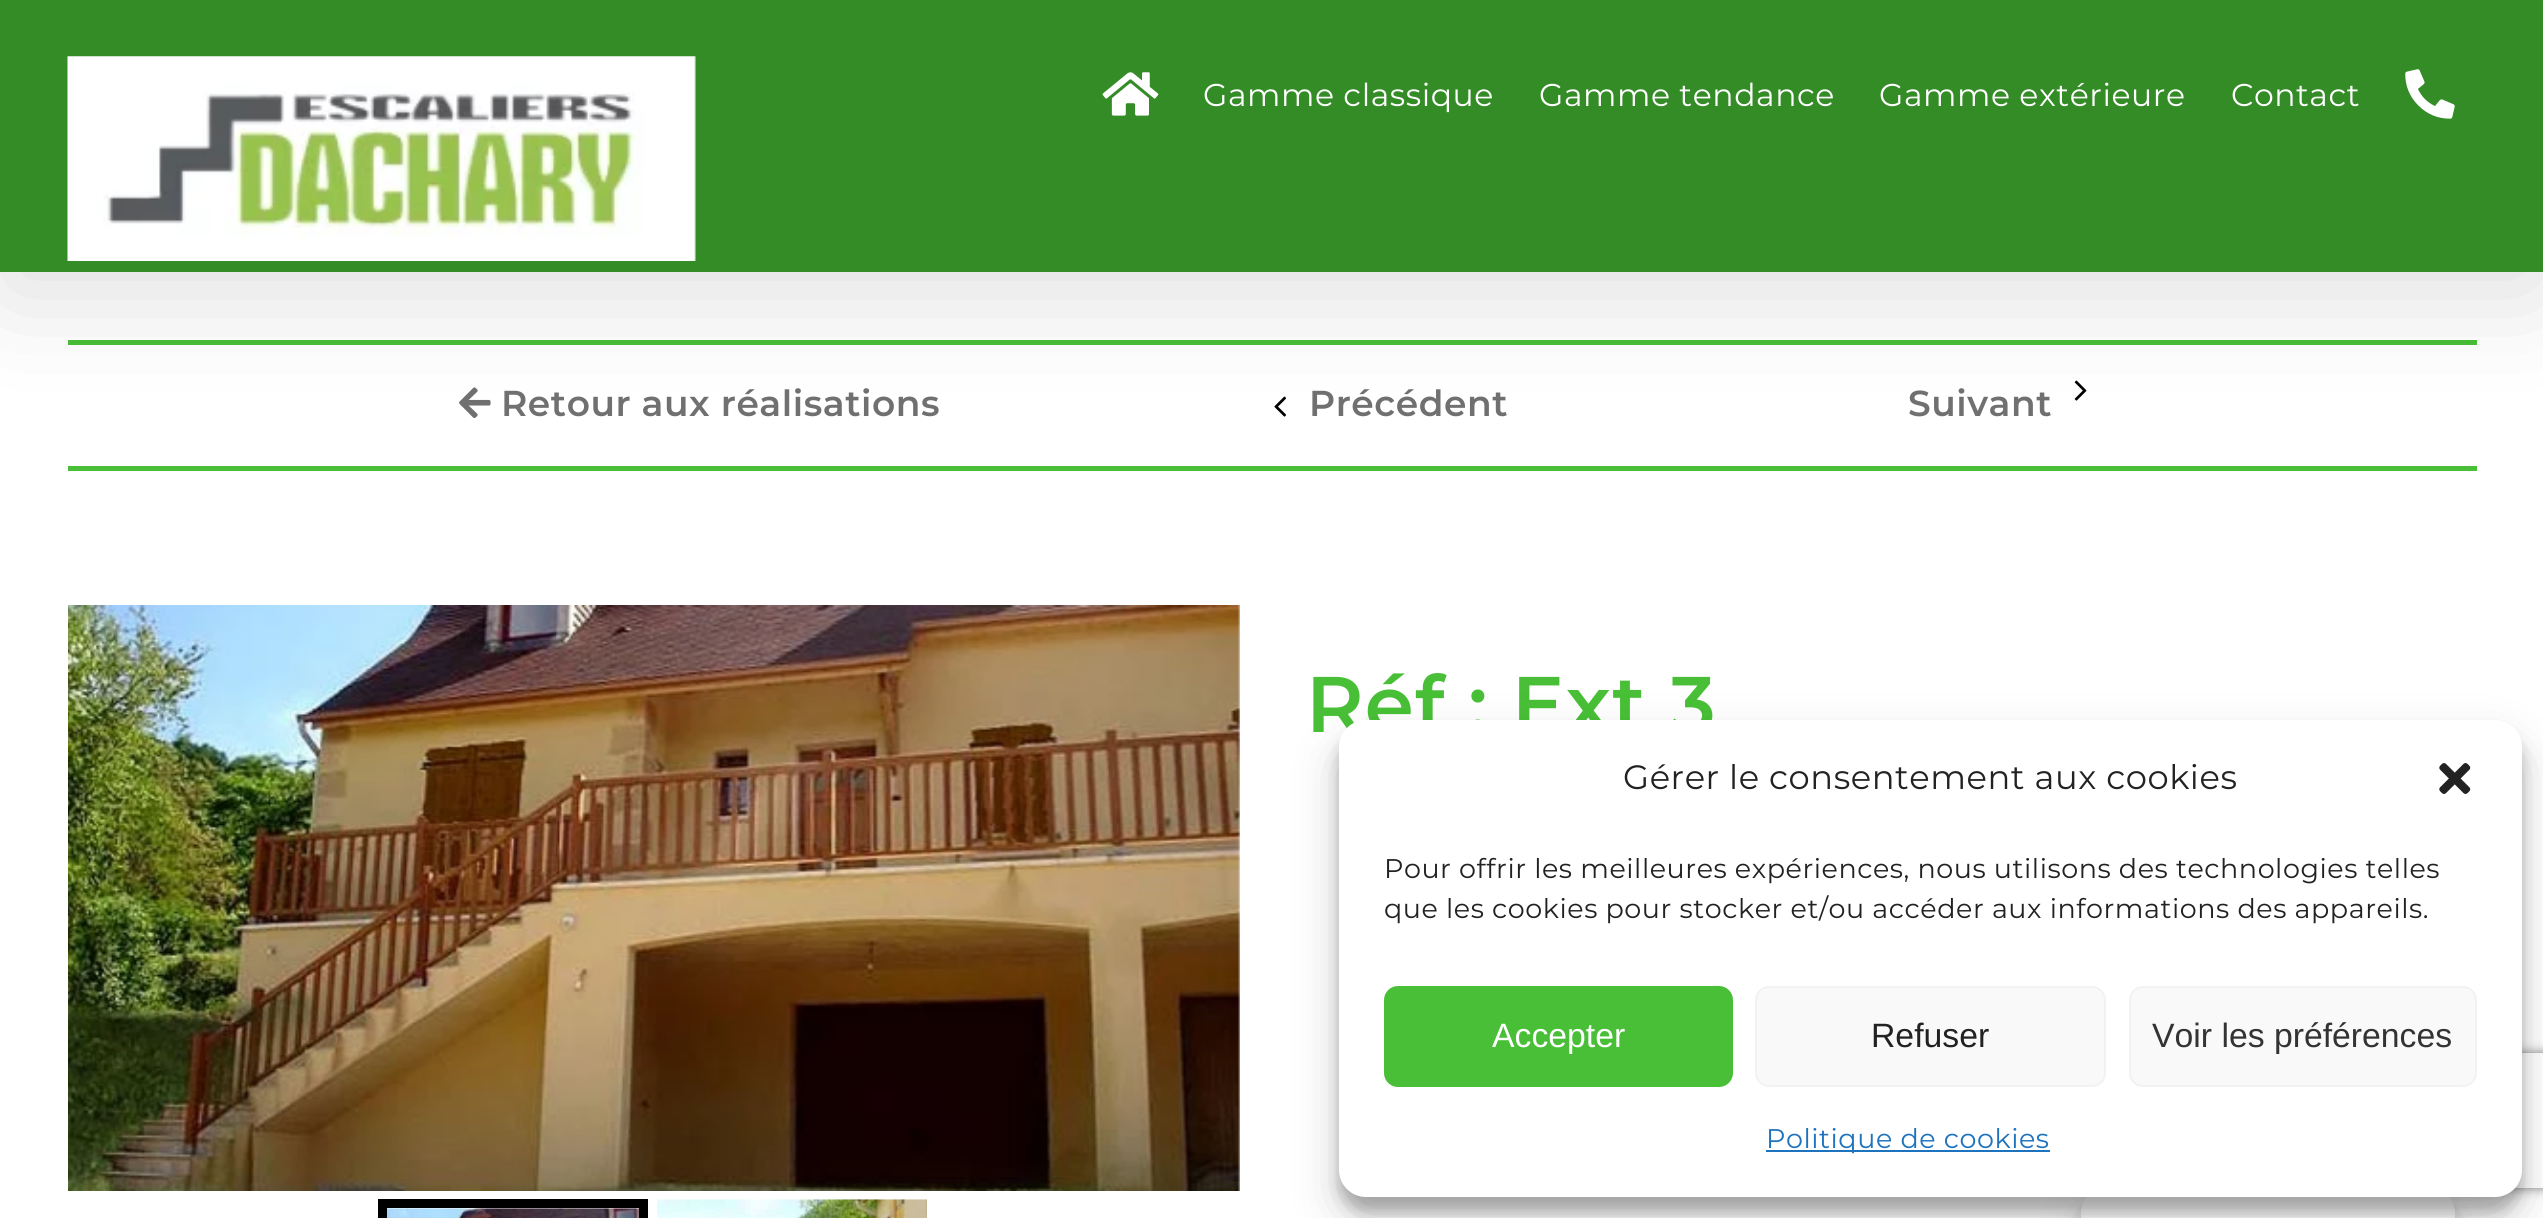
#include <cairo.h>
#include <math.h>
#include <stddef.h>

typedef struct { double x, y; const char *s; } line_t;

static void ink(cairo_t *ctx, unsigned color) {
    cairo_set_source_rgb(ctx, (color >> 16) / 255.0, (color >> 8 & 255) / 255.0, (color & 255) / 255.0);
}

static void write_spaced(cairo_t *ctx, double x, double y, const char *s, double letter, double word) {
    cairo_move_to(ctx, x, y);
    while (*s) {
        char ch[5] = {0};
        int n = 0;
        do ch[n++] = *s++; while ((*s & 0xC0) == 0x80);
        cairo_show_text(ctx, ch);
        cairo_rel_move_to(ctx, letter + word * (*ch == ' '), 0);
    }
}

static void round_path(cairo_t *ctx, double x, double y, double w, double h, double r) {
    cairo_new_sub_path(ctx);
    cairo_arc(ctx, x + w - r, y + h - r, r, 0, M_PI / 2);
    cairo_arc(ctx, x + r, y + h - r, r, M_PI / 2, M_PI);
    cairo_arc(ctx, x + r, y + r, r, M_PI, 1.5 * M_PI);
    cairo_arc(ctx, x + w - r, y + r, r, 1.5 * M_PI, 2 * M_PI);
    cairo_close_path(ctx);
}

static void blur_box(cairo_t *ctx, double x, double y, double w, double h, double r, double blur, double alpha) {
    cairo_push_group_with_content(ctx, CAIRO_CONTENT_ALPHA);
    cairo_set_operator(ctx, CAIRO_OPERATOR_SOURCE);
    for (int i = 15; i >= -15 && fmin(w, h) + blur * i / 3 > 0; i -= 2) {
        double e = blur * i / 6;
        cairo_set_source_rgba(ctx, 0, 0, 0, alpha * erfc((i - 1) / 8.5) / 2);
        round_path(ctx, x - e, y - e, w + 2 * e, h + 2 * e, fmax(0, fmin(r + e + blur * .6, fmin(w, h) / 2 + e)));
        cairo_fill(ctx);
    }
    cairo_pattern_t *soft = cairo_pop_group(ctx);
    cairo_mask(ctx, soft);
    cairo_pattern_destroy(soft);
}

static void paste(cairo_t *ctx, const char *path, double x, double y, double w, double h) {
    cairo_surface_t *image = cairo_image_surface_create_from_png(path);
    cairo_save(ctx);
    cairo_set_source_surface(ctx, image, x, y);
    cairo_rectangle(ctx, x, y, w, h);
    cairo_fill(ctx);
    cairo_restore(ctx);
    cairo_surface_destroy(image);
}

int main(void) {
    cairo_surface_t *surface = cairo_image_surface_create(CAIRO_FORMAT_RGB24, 2543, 1218);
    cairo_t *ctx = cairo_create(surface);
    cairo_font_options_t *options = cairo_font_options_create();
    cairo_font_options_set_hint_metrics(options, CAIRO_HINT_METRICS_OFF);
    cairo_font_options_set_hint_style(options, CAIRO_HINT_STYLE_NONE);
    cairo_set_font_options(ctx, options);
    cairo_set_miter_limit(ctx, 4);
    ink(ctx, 0xFFFFFF);
    cairo_paint(ctx);
    ink(ctx, 0x48BF36);
    cairo_rectangle(ctx, 68, 340, 2409, 5);
    cairo_fill(ctx);
    paste(ctx, "media/4.png", 459, 387, 32, 32);
    paste(ctx, "media/5.png", 1274, 396, 12, 21);
    paste(ctx, "media/6.png", 2074, 380, 13, 21);
    ink(ctx, 0x000000);
    blur_box(ctx, 5, 27, 2535, 263, 0, 56, 0.14);
    ink(ctx, 0x348C26);
    cairo_rectangle(ctx, 0, 0, 2543, 272);
    cairo_fill(ctx);
    paste(ctx, "media/1.png", 67, 56, 629, 205);
    paste(ctx, "media/2.png", 1102, 72, 57, 44);
    cairo_select_font_face(ctx, "Montserrat", CAIRO_FONT_SLANT_NORMAL, CAIRO_FONT_WEIGHT_NORMAL);
    cairo_set_font_size(ctx, 31.5);
    ink(ctx, 0xFFFFFF);
    {
        static const line_t items[] = {
            {1203, 106, "Gamme classique"},
            {1539, 106, "Gamme tendance"},
            {1879, 106, "Gamme extérieure"},
            {2231, 106, "Contact"},
        };
        for (size_t i = 0; i < sizeof items / sizeof *items; i++) {
            write_spaced(ctx, items[i].x, items[i].y, items[i].s, 0.55, 0);
        }
    }
    paste(ctx, "media/3.png", 2405, 69, 50, 50);
    ink(ctx, 0x48BF36);
    cairo_rectangle(ctx, 68, 466, 2409, 5);
    cairo_fill(ctx);
    cairo_select_font_face(ctx, "Montserrat SemiBold", CAIRO_FONT_SLANT_NORMAL, CAIRO_FONT_WEIGHT_NORMAL);
    cairo_set_font_size(ctx, 36);
    ink(ctx, 0x707070);
    {
        static const line_t items[] = {
            {501, 416, "Retour aux réalisations"},
            {1309, 416, "Précédent"},
            {1908, 416, "Suivant"},
        };
        for (size_t i = 0; i < sizeof items / sizeof *items; i++) {
            write_spaced(ctx, items[i].x, items[i].y, items[i].s, 0.55, 0);
        }
    }
    paste(ctx, "media/7.png", 68, 605, 1172, 586);
    cairo_rectangle(ctx, 382.5, 1203.5, 261, 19);
    ink(ctx, 0x000000);
    cairo_set_line_width(ctx, 9);
    cairo_stroke(ctx);
    paste(ctx, "media/8.png", 387, 1208, 252, 10);
    paste(ctx, "media/9.png", 657, 1199, 270, 19);
    cairo_set_font_size(ctx, 78.75);
    ink(ctx, 0x48BF36);
    write_spaced(ctx, 1306, 732, "Réf : Ext 3", 1.25, 0);
    cairo_save(ctx);
    cairo_set_fill_rule(ctx, CAIRO_FILL_RULE_EVEN_ODD);
    cairo_new_path(ctx);
    cairo_move_to(ctx, 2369, 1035);
    cairo_line_to(ctx, 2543, 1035);
    cairo_line_to(ctx, 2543, 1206);
    cairo_line_to(ctx, 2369, 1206);
    cairo_close_path(ctx);
    cairo_move_to(ctx, 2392, 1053);
    cairo_line_to(ctx, 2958, 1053);
    cairo_curve_to(ctx, 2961, 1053, 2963, 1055, 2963, 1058);
    cairo_line_to(ctx, 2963, 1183);
    cairo_curve_to(ctx, 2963, 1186, 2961, 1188, 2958, 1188);
    cairo_line_to(ctx, 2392, 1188);
    cairo_curve_to(ctx, 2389, 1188, 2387, 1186, 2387, 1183);
    cairo_line_to(ctx, 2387, 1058);
    cairo_curve_to(ctx, 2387, 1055, 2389, 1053, 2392, 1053);
    cairo_close_path(ctx);
    cairo_clip(ctx);
    ink(ctx, 0x808080);
    blur_box(ctx, 2387, 1053, 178, 135, 5, 5.5, 1);
    cairo_restore(ctx);
    ink(ctx, 0x000000);
    blur_box(ctx, 2081, 1199, 374, 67, 27, 7, 0.23);
    blur_box(ctx, 2081, 1208, 374, 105, 27, 22.5, 0.19);
    ink(ctx, 0xFFFFFF);
    cairo_new_path(ctx);
    cairo_move_to(ctx, 2108, 1186);
    cairo_line_to(ctx, 2428, 1186);
    cairo_curve_to(ctx, 2443, 1186, 2455, 1198, 2455, 1213);
    cairo_line_to(ctx, 2455, 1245);
    cairo_line_to(ctx, 2081, 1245);
    cairo_line_to(ctx, 2081, 1213);
    cairo_curve_to(ctx, 2081, 1198, 2093, 1186, 2108, 1186);
    cairo_close_path(ctx);
    cairo_fill(ctx);
    ink(ctx, 0x000000);
    blur_box(ctx, 1339, 734, 1183, 477, 27, 7, 0.23);
    blur_box(ctx, 1339, 743, 1183, 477, 27, 22.5, 0.19);
    ink(ctx, 0xFFFFFF);
    round_path(ctx, 1339, 720, 1183, 477, 27);
    cairo_fill(ctx);
    cairo_select_font_face(ctx, "Montserrat", CAIRO_FONT_SLANT_NORMAL, CAIRO_FONT_WEIGHT_NORMAL);
    cairo_set_font_size(ctx, 33.75);
    ink(ctx, 0x222222);
    write_spaced(ctx, 1623, 789, "Gérer le consentement aux cookies", 0.55, 0);
    paste(ctx, "media/10.png", 2439, 763, 32, 31);
    cairo_set_font_size(ctx, 27);
    write_spaced(ctx, 1384, 878, "Pour offrir les meilleures expériences, nous utilisons des technologies telles", 0.55, 0);
    write_spaced(ctx, 1384, 918, "que les cookies pour stocker et/ou accéder aux informations des appareils.", 0.55, 0);
    ink(ctx, 0x48BF36);
    round_path(ctx, 1385, 987, 347, 99, 13);
    cairo_fill_preserve(ctx);
    cairo_set_line_width(ctx, 2);
    cairo_stroke(ctx);
    cairo_select_font_face(ctx, "Liberation Sans", CAIRO_FONT_SLANT_NORMAL, CAIRO_FONT_WEIGHT_NORMAL);
    cairo_set_font_size(ctx, 33.75);
    ink(ctx, 0xFFFFFF);
    cairo_move_to(ctx, 1492, 1047);
    cairo_show_text(ctx, "Accepter");
    ink(ctx, 0xF9F9F9);
    round_path(ctx, 1756, 987, 349, 99, 13);
    cairo_fill_preserve(ctx);
    ink(ctx, 0xF2F2F2);
    cairo_stroke(ctx);
    ink(ctx, 0x222222);
    cairo_move_to(ctx, 1871, 1047);
    cairo_show_text(ctx, "Refuser");
    ink(ctx, 0xF9F9F9);
    round_path(ctx, 2130, 987, 346, 99, 13);
    cairo_fill_preserve(ctx);
    ink(ctx, 0xF2F2F2);
    cairo_stroke(ctx);
    ink(ctx, 0x333333);
    cairo_move_to(ctx, 2152, 1047);
    cairo_show_text(ctx, "Voir les préférences");
    ink(ctx, 0x1E73BE);
    cairo_rectangle(ctx, 1766, 1150, 284, 2);
    cairo_fill(ctx);
    cairo_select_font_face(ctx, "Montserrat", CAIRO_FONT_SLANT_NORMAL, CAIRO_FONT_WEIGHT_NORMAL);
    cairo_set_font_size(ctx, 27);
    write_spaced(ctx, 1766, 1148, "Politique de cookies", 0.55, 0);
    cairo_surface_write_to_png(surface, "image.png");
    cairo_font_options_destroy(options);
    cairo_destroy(ctx);
    cairo_surface_destroy(surface);
    return 0;
}
